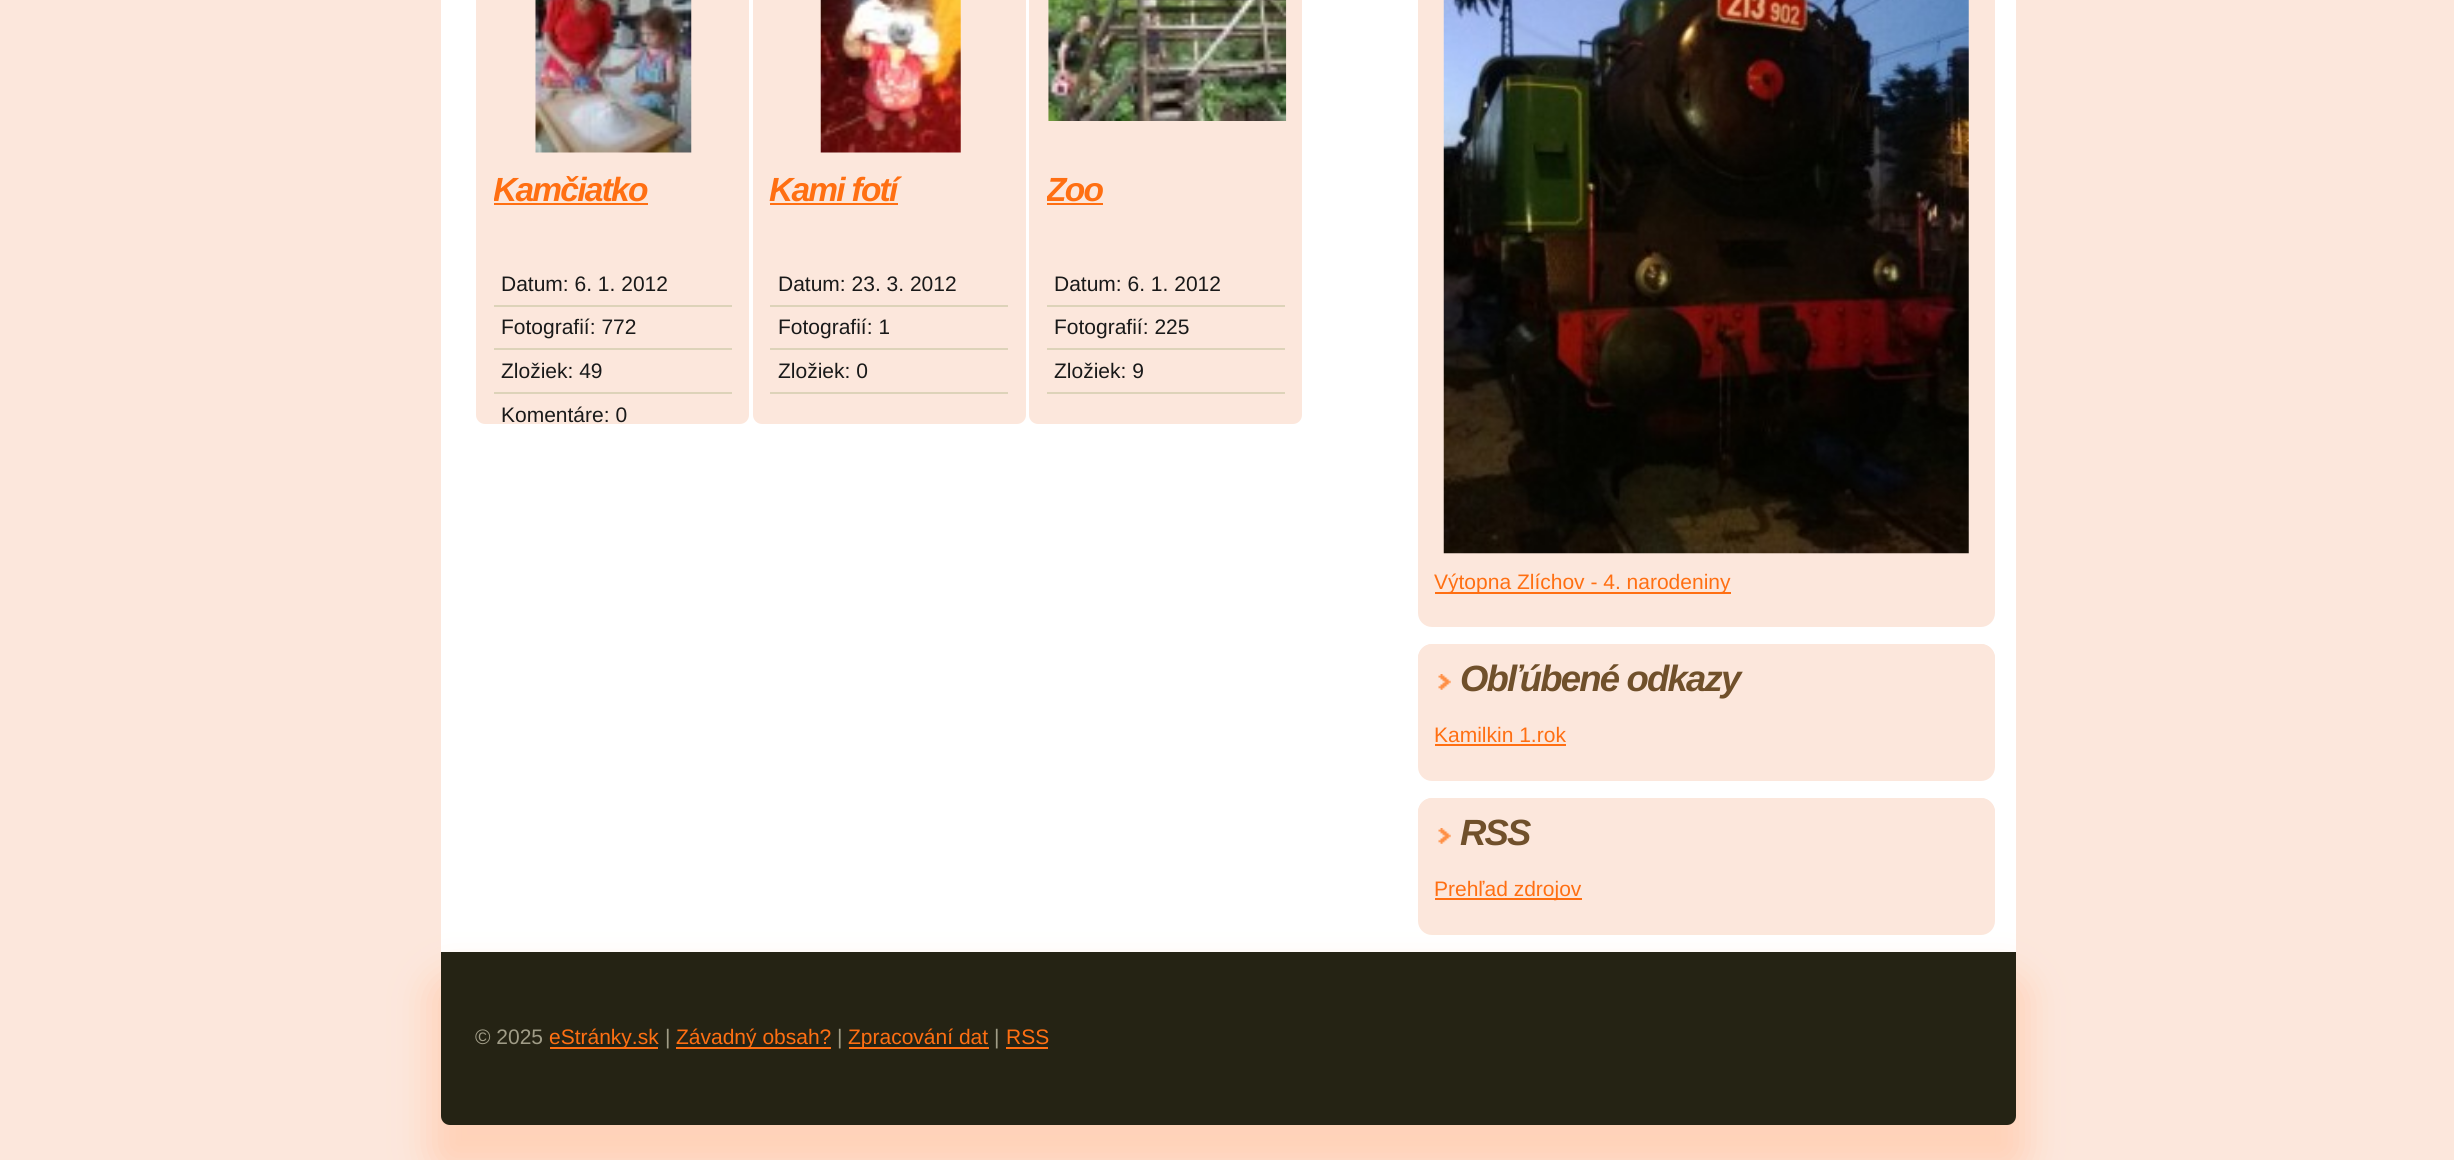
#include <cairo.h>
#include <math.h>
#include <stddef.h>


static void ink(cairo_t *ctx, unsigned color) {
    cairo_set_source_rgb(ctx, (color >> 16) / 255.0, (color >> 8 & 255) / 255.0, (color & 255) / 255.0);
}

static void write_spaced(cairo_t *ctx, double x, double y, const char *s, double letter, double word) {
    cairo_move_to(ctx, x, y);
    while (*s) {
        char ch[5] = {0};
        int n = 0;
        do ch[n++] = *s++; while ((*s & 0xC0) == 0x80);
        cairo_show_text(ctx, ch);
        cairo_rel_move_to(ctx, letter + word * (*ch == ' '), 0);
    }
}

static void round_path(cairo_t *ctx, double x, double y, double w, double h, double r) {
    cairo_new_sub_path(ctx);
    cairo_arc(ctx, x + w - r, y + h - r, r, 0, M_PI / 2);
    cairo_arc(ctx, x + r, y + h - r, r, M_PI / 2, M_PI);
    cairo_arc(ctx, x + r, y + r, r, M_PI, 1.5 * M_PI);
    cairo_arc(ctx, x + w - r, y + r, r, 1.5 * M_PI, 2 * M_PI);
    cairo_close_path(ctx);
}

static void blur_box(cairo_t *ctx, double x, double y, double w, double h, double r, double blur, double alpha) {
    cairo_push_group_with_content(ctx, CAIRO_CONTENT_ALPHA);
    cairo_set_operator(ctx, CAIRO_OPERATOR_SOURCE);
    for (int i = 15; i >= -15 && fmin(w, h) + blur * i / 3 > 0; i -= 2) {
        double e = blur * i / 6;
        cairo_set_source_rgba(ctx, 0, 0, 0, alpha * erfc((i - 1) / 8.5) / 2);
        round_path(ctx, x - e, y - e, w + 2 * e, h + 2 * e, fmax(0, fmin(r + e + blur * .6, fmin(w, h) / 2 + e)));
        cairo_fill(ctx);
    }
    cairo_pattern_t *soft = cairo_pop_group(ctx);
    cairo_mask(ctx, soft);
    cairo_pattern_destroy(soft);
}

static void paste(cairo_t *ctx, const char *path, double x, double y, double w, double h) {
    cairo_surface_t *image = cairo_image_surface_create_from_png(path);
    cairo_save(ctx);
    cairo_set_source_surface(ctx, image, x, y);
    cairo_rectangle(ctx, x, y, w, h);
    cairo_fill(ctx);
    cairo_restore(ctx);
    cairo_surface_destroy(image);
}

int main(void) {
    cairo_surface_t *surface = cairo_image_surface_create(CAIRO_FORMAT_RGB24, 2454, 1160);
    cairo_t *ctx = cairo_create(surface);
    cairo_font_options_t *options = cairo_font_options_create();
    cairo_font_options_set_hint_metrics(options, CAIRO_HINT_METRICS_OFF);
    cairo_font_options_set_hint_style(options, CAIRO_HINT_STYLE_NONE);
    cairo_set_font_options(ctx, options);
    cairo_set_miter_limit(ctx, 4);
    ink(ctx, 0xFCE7DC);
    cairo_paint(ctx);
    ink(ctx, 0xFFFFFF);
    cairo_rectangle(ctx, 441, 0, 1575, 952);
    cairo_fill(ctx);
    ink(ctx, 0xFCE7DC);
    round_path(ctx, 476, -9, 273, 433, 9);
    cairo_fill(ctx);
    paste(ctx, "media/1.png", 535, 0, 157, 153);
    cairo_save(ctx);
    cairo_rectangle(ctx, 494, 170, 238, 84);
    cairo_clip(ctx);
    cairo_select_font_face(ctx, "Liberation Sans", CAIRO_FONT_SLANT_ITALIC, CAIRO_FONT_WEIGHT_BOLD);
    cairo_set_font_size(ctx, 33.5);
    ink(ctx, 0xFF6F12);
    write_spaced(ctx, 493, 201, "Kamčiatko", -1.75, 0);
    cairo_restore(ctx);
    ink(ctx, 0xFF6F12);
    cairo_rectangle(ctx, 494, 203, 154, 2);
    cairo_fill(ctx);
    ink(ctx, 0xDDD3B9);
    cairo_rectangle(ctx, 494, 305, 238, 2);
    cairo_fill(ctx);
    cairo_select_font_face(ctx, "Liberation Sans", CAIRO_FONT_SLANT_NORMAL, CAIRO_FONT_WEIGHT_NORMAL);
    cairo_set_font_size(ctx, 21);
    ink(ctx, 0x191919);
    cairo_move_to(ctx, 501, 291);
    cairo_show_text(ctx, "Datum: 6. 1. 2012");
    ink(ctx, 0xDDD3B9);
    cairo_rectangle(ctx, 494, 348, 238, 2);
    cairo_fill(ctx);
    ink(ctx, 0x191919);
    cairo_move_to(ctx, 501, 334);
    cairo_show_text(ctx, "Fotografií: 772");
    ink(ctx, 0xDDD3B9);
    cairo_rectangle(ctx, 494, 392, 238, 2);
    cairo_fill(ctx);
    ink(ctx, 0x191919);
    cairo_move_to(ctx, 501, 378);
    cairo_show_text(ctx, "Zložiek: 49");
    cairo_move_to(ctx, 501, 422);
    cairo_show_text(ctx, "Komentáre: 0");
    ink(ctx, 0xFCE7DC);
    round_path(ctx, 753, -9, 273, 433, 9);
    cairo_fill(ctx);
    paste(ctx, "media/2.png", 820, 0, 141, 153);
    cairo_select_font_face(ctx, "Liberation Sans", CAIRO_FONT_SLANT_ITALIC, CAIRO_FONT_WEIGHT_BOLD);
    cairo_set_font_size(ctx, 33.5);
    ink(ctx, 0xFF6F12);
    write_spaced(ctx, 769, 201, "Kami fotí", -1.75, 0);
    cairo_rectangle(ctx, 770, 203, 128, 2);
    cairo_fill(ctx);
    ink(ctx, 0xDDD3B9);
    cairo_rectangle(ctx, 770, 305, 238, 2);
    cairo_fill(ctx);
    cairo_select_font_face(ctx, "Liberation Sans", CAIRO_FONT_SLANT_NORMAL, CAIRO_FONT_WEIGHT_NORMAL);
    cairo_set_font_size(ctx, 21);
    ink(ctx, 0x191919);
    cairo_move_to(ctx, 778, 291);
    cairo_show_text(ctx, "Datum: 23. 3. 2012");
    ink(ctx, 0xDDD3B9);
    cairo_rectangle(ctx, 770, 348, 238, 2);
    cairo_fill(ctx);
    ink(ctx, 0x191919);
    cairo_move_to(ctx, 778, 334);
    cairo_show_text(ctx, "Fotografií: 1");
    ink(ctx, 0xDDD3B9);
    cairo_rectangle(ctx, 770, 392, 238, 2);
    cairo_fill(ctx);
    ink(ctx, 0x191919);
    cairo_move_to(ctx, 778, 378);
    cairo_show_text(ctx, "Zložiek: 0");
    ink(ctx, 0xFCE7DC);
    round_path(ctx, 1029, -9, 273, 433, 9);
    cairo_fill(ctx);
    paste(ctx, "media/3.png", 1048, 0, 239, 121);
    cairo_save(ctx);
    cairo_rectangle(ctx, 1047, 170, 238, 84);
    cairo_clip(ctx);
    cairo_select_font_face(ctx, "Liberation Sans", CAIRO_FONT_SLANT_ITALIC, CAIRO_FONT_WEIGHT_BOLD);
    cairo_set_font_size(ctx, 33.5);
    ink(ctx, 0xFF6F12);
    write_spaced(ctx, 1046, 201, "Zoo", -1.75, 0);
    cairo_restore(ctx);
    ink(ctx, 0xFF6F12);
    cairo_rectangle(ctx, 1047, 203, 56, 2);
    cairo_fill(ctx);
    ink(ctx, 0xDDD3B9);
    cairo_rectangle(ctx, 1047, 305, 238, 2);
    cairo_fill(ctx);
    ink(ctx, 0x191919);
    cairo_move_to(ctx, 1054, 291);
    cairo_show_text(ctx, "Datum: 6. 1. 2012");
    ink(ctx, 0xDDD3B9);
    cairo_rectangle(ctx, 1047, 348, 238, 2);
    cairo_fill(ctx);
    ink(ctx, 0x191919);
    cairo_move_to(ctx, 1054, 334);
    cairo_show_text(ctx, "Fotografií: 225");
    ink(ctx, 0xDDD3B9);
    cairo_rectangle(ctx, 1047, 392, 238, 2);
    cairo_fill(ctx);
    ink(ctx, 0x191919);
    cairo_move_to(ctx, 1054, 378);
    cairo_show_text(ctx, "Zložiek: 9");
    ink(ctx, 0xFCE7DC);
    round_path(ctx, 1418, -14, 577, 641, 14);
    cairo_fill(ctx);
    paste(ctx, "media/4.png", 1443, 0, 526, 554);
    ink(ctx, 0xFF6F12);
    cairo_rectangle(ctx, 1435, 592, 296, 2);
    cairo_fill(ctx);
    cairo_move_to(ctx, 1434, 589);
    cairo_show_text(ctx, "Výtopna Zlíchov - 4. narodeniny");
    ink(ctx, 0xFCE7DC);
    round_path(ctx, 1418, 644, 577, 137, 14);
    cairo_fill(ctx);
    cairo_new_path(ctx);
    cairo_move_to(ctx, 1432, 644);
    cairo_line_to(ctx, 1981, 644);
    cairo_curve_to(ctx, 1988.5, 644, 1995, 650.5, 1995, 658);
    cairo_line_to(ctx, 1995, 700);
    cairo_line_to(ctx, 1418, 700);
    cairo_line_to(ctx, 1418, 658);
    cairo_curve_to(ctx, 1418, 650.5, 1424.5, 644, 1432, 644);
    cairo_close_path(ctx);
    cairo_fill(ctx);
    paste(ctx, "media/5.png", 1438, 674, 13, 16);
    cairo_select_font_face(ctx, "Liberation Sans", CAIRO_FONT_SLANT_ITALIC, CAIRO_FONT_WEIGHT_BOLD);
    cairo_set_font_size(ctx, 36.5);
    ink(ctx, 0x70502B);
    write_spaced(ctx, 1460, 691, "Obľúbené odkazy", -1.8, 0);
    cairo_select_font_face(ctx, "Liberation Sans", CAIRO_FONT_SLANT_NORMAL, CAIRO_FONT_WEIGHT_NORMAL);
    cairo_set_font_size(ctx, 21);
    ink(ctx, 0xFF6F12);
    cairo_move_to(ctx, 1434, 742);
    cairo_show_text(ctx, "Kamilkin 1.rok");
    cairo_rectangle(ctx, 1435, 744, 131, 2);
    cairo_fill(ctx);
    ink(ctx, 0xFCE7DC);
    round_path(ctx, 1418, 798, 577, 137, 14);
    cairo_fill(ctx);
    cairo_new_path(ctx);
    cairo_move_to(ctx, 1432, 798);
    cairo_line_to(ctx, 1981, 798);
    cairo_curve_to(ctx, 1988.5, 798, 1995, 804.5, 1995, 812);
    cairo_line_to(ctx, 1995, 854);
    cairo_line_to(ctx, 1418, 854);
    cairo_line_to(ctx, 1418, 812);
    cairo_curve_to(ctx, 1418, 804.5, 1424.5, 798, 1432, 798);
    cairo_close_path(ctx);
    cairo_fill(ctx);
    paste(ctx, "media/5.png", 1438, 828, 13, 16);
    cairo_select_font_face(ctx, "Liberation Sans", CAIRO_FONT_SLANT_ITALIC, CAIRO_FONT_WEIGHT_BOLD);
    cairo_set_font_size(ctx, 36.5);
    ink(ctx, 0x70502B);
    write_spaced(ctx, 1460, 845, "RSS", -1.8, 0);
    ink(ctx, 0xFF6F12);
    cairo_rectangle(ctx, 1435, 898, 147, 2);
    cairo_fill(ctx);
    cairo_select_font_face(ctx, "Liberation Sans", CAIRO_FONT_SLANT_NORMAL, CAIRO_FONT_WEIGHT_NORMAL);
    cairo_set_font_size(ctx, 21);
    cairo_move_to(ctx, 1434, 896);
    cairo_show_text(ctx, "Prehľad zdrojov");
    ink(ctx, 0xFFD2B9);
    blur_box(ctx, 429, 975, 1599, 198, 21, 17.5, 1);
    ink(ctx, 0x252314);
    cairo_new_path(ctx);
    cairo_move_to(ctx, 441, 952);
    cairo_line_to(ctx, 2016, 952);
    cairo_line_to(ctx, 2016, 1116);
    cairo_curve_to(ctx, 2016, 1121, 2012, 1125, 2007, 1125);
    cairo_line_to(ctx, 450, 1125);
    cairo_curve_to(ctx, 445, 1125, 441, 1121, 441, 1116);
    cairo_close_path(ctx);
    cairo_fill(ctx);
    ink(ctx, 0xA09C87);
    cairo_move_to(ctx, 475, 1044);
    cairo_show_text(ctx, "© 2025");
    ink(ctx, 0xFF6F12);
    cairo_rectangle(ctx, 550, 1047, 108, 2);
    cairo_fill(ctx);
    cairo_move_to(ctx, 549, 1044);
    cairo_show_text(ctx, "eStránky.sk");
    ink(ctx, 0xA09C87);
    cairo_move_to(ctx, 665, 1044);
    cairo_show_text(ctx, "|");
    ink(ctx, 0xFF6F12);
    cairo_rectangle(ctx, 676, 1047, 155, 2);
    cairo_fill(ctx);
    cairo_move_to(ctx, 676, 1044);
    cairo_show_text(ctx, "Závadný obsah?");
    ink(ctx, 0xA09C87);
    cairo_move_to(ctx, 837, 1044);
    cairo_show_text(ctx, "|");
    ink(ctx, 0xFF6F12);
    cairo_rectangle(ctx, 849, 1047, 140, 2);
    cairo_fill(ctx);
    cairo_move_to(ctx, 848, 1044);
    cairo_show_text(ctx, "Zpracování dat");
    ink(ctx, 0xA09C87);
    cairo_move_to(ctx, 994, 1044);
    cairo_show_text(ctx, "|");
    ink(ctx, 0xFF6F12);
    cairo_move_to(ctx, 1006, 1044);
    cairo_show_text(ctx, "RSS");
    cairo_rectangle(ctx, 1006, 1047, 42, 2);
    cairo_fill(ctx);
    cairo_surface_write_to_png(surface, "image.png");
    cairo_font_options_destroy(options);
    cairo_destroy(ctx);
    cairo_surface_destroy(surface);
    return 0;
}
